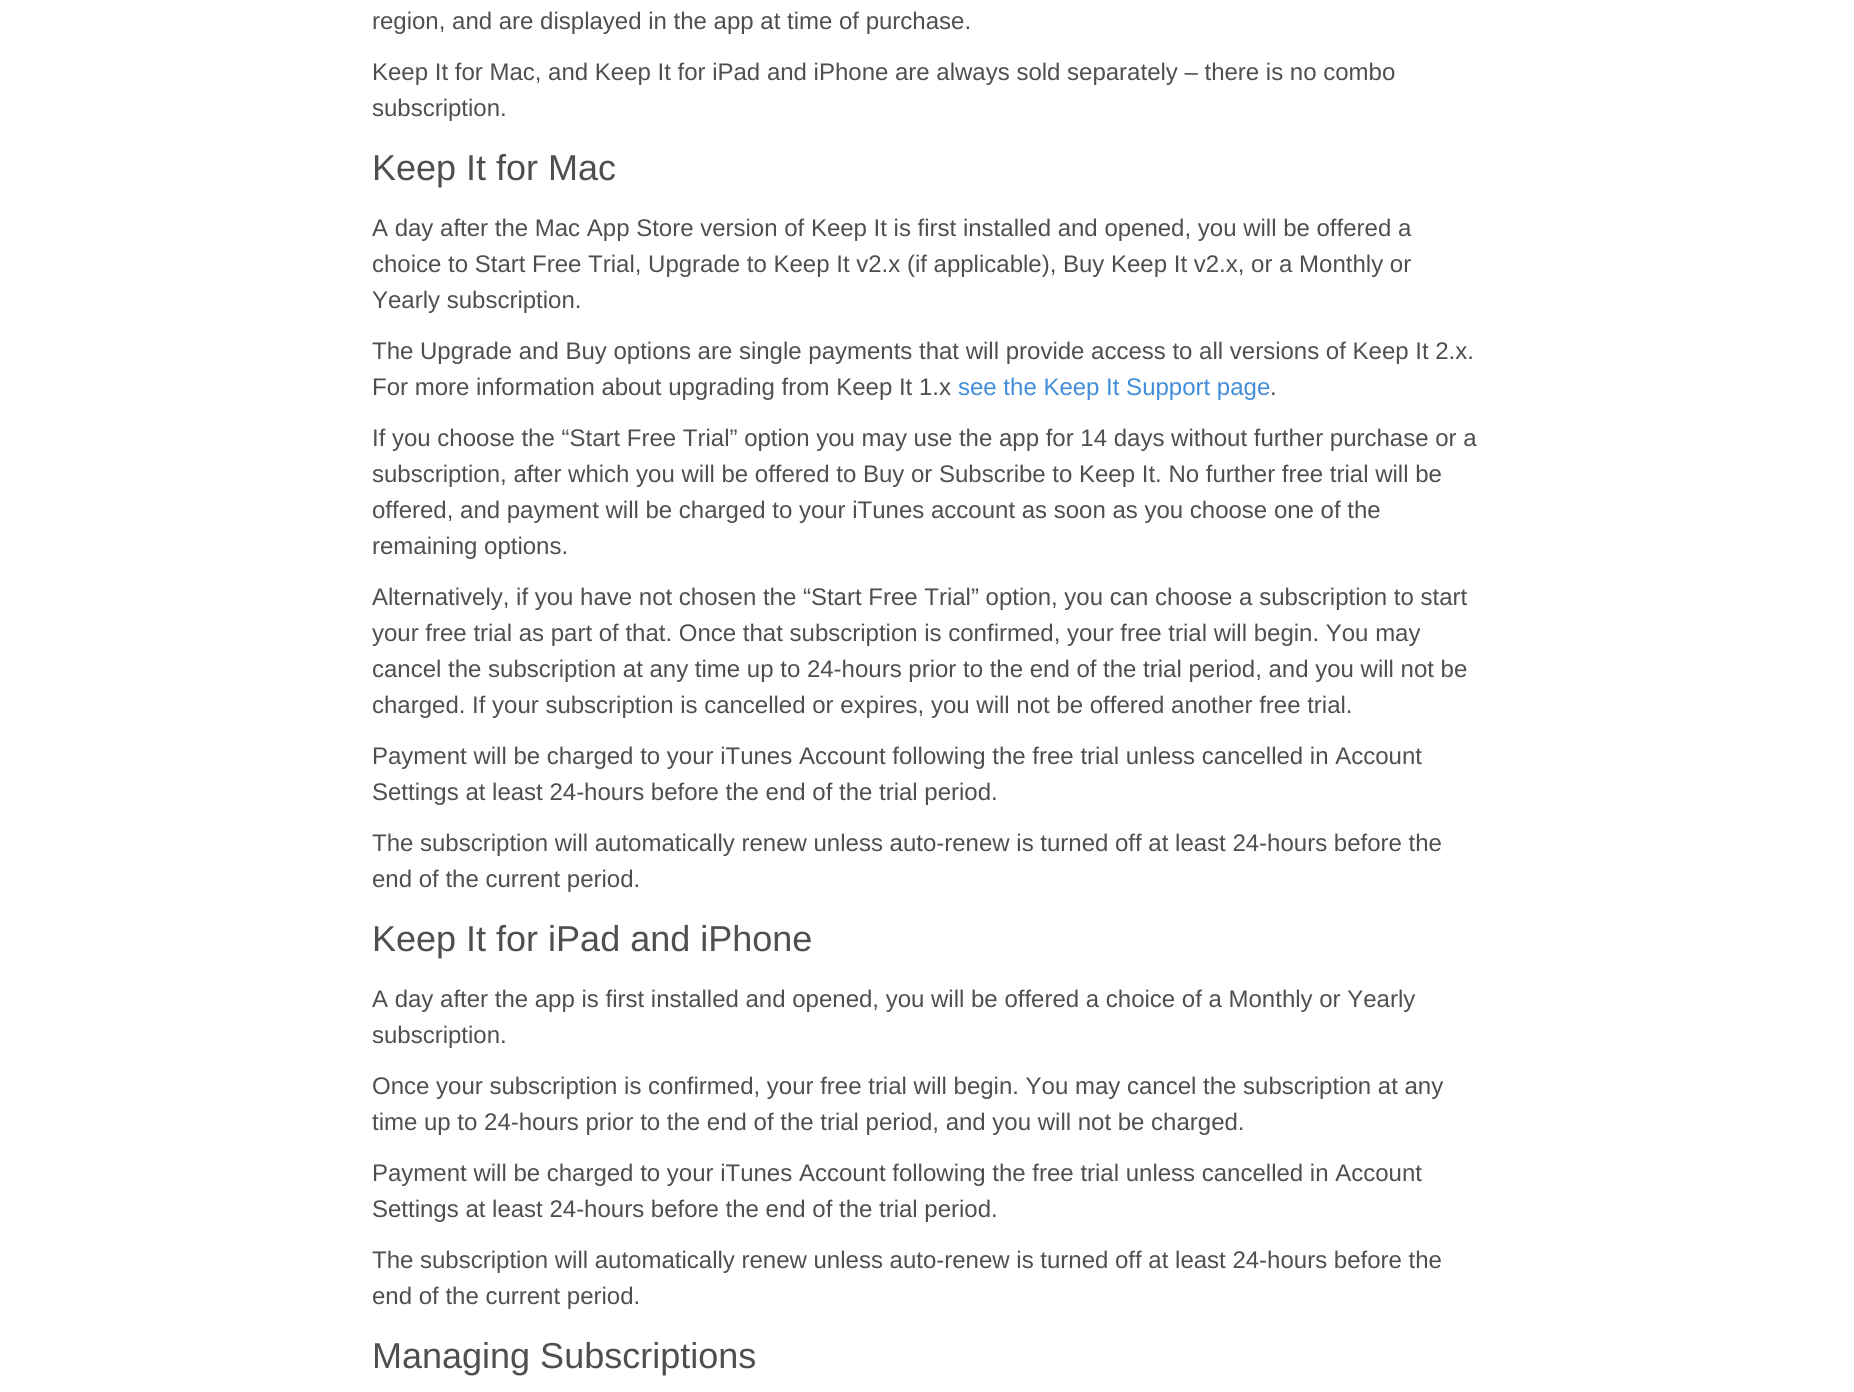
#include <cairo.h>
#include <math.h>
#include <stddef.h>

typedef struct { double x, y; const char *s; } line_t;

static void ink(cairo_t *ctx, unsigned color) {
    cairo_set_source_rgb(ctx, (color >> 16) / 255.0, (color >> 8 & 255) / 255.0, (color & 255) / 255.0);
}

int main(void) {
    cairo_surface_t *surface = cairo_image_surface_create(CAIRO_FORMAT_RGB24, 1854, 1392);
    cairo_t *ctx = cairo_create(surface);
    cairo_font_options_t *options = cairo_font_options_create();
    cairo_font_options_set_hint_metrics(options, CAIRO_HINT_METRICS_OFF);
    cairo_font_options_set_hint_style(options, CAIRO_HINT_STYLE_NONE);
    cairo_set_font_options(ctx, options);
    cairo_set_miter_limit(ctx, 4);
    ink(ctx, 0xFFFFFF);
    cairo_paint(ctx);
    cairo_select_font_face(ctx, "Liberation Sans", CAIRO_FONT_SLANT_NORMAL, CAIRO_FONT_WEIGHT_NORMAL);
    cairo_set_font_size(ctx, 24);
    ink(ctx, 0x4F4F4F);
    {
        static const line_t items[] = {
            {372, 29, "region, and are displayed in the app at time of purchase."},
            {372, 80, "Keep It for Mac, and Keep It for iPad and iPhone are always sold separately – there is no combo"},
            {372, 116, "subscription."},
        };
        for (size_t i = 0; i < sizeof items / sizeof *items; i++) {
            cairo_move_to(ctx, items[i].x, items[i].y);
            cairo_show_text(ctx, items[i].s);
        }
    }
    cairo_set_font_size(ctx, 36);
    cairo_move_to(ctx, 372, 180);
    cairo_show_text(ctx, "Keep It for Mac");
    cairo_set_font_size(ctx, 24);
    {
        static const line_t items[] = {
            {372, 236, "A day after the Mac App Store version of Keep It is first installed and opened, you will be offered a"},
            {372, 272, "choice to Start Free Trial, Upgrade to Keep It v2.x (if applicable), Buy Keep It v2.x, or a Monthly or"},
            {372, 308, "Yearly subscription."},
            {372, 359, "The Upgrade and Buy options are single payments that will provide access to all versions of Keep It 2.x."},
            {372, 395, "For more information about upgrading from Keep It 1.x"},
        };
        for (size_t i = 0; i < sizeof items / sizeof *items; i++) {
            cairo_move_to(ctx, items[i].x, items[i].y);
            cairo_show_text(ctx, items[i].s);
        }
    }
    ink(ctx, 0x418DD9);
    cairo_move_to(ctx, 958, 395);
    cairo_show_text(ctx, "see the Keep It Support page");
    ink(ctx, 0x4F4F4F);
    {
        static const line_t items[] = {
            {1270, 395, "."},
            {372, 446, "If you choose the “Start Free Trial” option you may use the app for 14 days without further purchase or a"},
            {372, 482, "subscription, after which you will be offered to Buy or Subscribe to Keep It. No further free trial will be"},
            {372, 518, "offered, and payment will be charged to your iTunes account as soon as you choose one of the"},
            {372, 554, "remaining options."},
            {372, 605, "Alternatively, if you have not chosen the “Start Free Trial” option, you can choose a subscription to start"},
            {372, 641, "your free trial as part of that. Once that subscription is confirmed, your free trial will begin. You may"},
            {372, 677, "cancel the subscription at any time up to 24-hours prior to the end of the trial period, and you will not be"},
            {372, 713, "charged. If your subscription is cancelled or expires, you will not be offered another free trial."},
            {372, 764, "Payment will be charged to your iTunes Account following the free trial unless cancelled in Account"},
            {372, 800, "Settings at least 24-hours before the end of the trial period."},
            {372, 851, "The subscription will automatically renew unless auto-renew is turned off at least 24-hours before the"},
            {372, 887, "end of the current period."},
        };
        for (size_t i = 0; i < sizeof items / sizeof *items; i++) {
            cairo_move_to(ctx, items[i].x, items[i].y);
            cairo_show_text(ctx, items[i].s);
        }
    }
    cairo_set_font_size(ctx, 36);
    cairo_move_to(ctx, 372, 951);
    cairo_show_text(ctx, "Keep It for iPad and iPhone");
    cairo_set_font_size(ctx, 24);
    {
        static const line_t items[] = {
            {372, 1007, "A day after the app is first installed and opened, you will be offered a choice of a Monthly or Yearly"},
            {372, 1043, "subscription."},
            {372, 1094, "Once your subscription is confirmed, your free trial will begin. You may cancel the subscription at any"},
            {372, 1130, "time up to 24-hours prior to the end of the trial period, and you will not be charged."},
            {372, 1181, "Payment will be charged to your iTunes Account following the free trial unless cancelled in Account"},
            {372, 1217, "Settings at least 24-hours before the end of the trial period."},
            {372, 1268, "The subscription will automatically renew unless auto-renew is turned off at least 24-hours before the"},
            {372, 1304, "end of the current period."},
        };
        for (size_t i = 0; i < sizeof items / sizeof *items; i++) {
            cairo_move_to(ctx, items[i].x, items[i].y);
            cairo_show_text(ctx, items[i].s);
        }
    }
    cairo_set_font_size(ctx, 36);
    cairo_move_to(ctx, 372, 1368);
    cairo_show_text(ctx, "Managing Subscriptions");
    cairo_surface_write_to_png(surface, "image.png");
    cairo_font_options_destroy(options);
    cairo_destroy(ctx);
    cairo_surface_destroy(surface);
    return 0;
}
